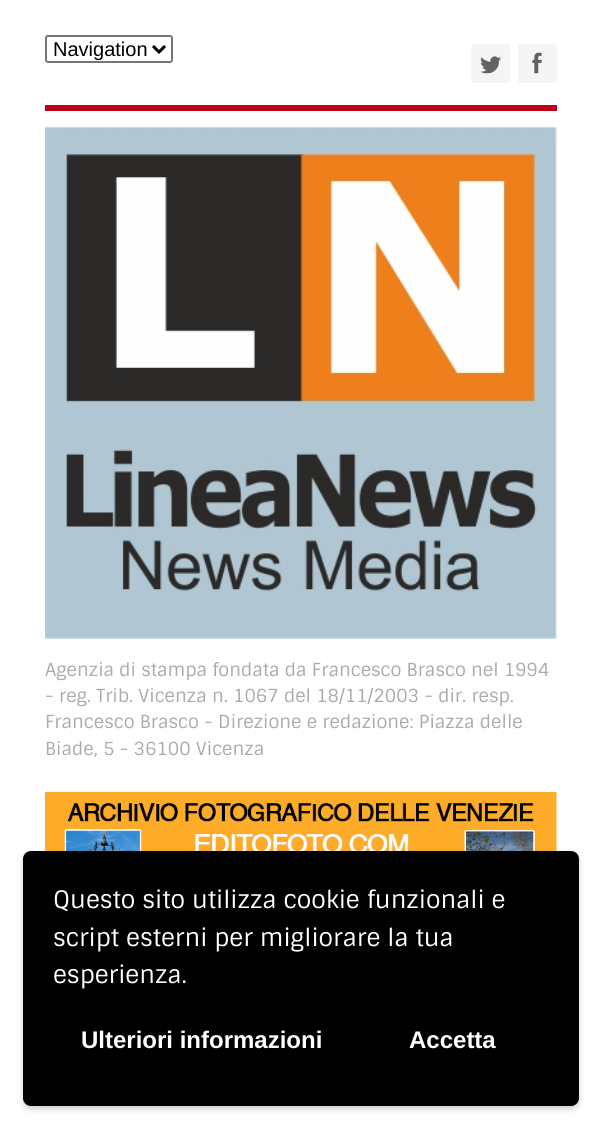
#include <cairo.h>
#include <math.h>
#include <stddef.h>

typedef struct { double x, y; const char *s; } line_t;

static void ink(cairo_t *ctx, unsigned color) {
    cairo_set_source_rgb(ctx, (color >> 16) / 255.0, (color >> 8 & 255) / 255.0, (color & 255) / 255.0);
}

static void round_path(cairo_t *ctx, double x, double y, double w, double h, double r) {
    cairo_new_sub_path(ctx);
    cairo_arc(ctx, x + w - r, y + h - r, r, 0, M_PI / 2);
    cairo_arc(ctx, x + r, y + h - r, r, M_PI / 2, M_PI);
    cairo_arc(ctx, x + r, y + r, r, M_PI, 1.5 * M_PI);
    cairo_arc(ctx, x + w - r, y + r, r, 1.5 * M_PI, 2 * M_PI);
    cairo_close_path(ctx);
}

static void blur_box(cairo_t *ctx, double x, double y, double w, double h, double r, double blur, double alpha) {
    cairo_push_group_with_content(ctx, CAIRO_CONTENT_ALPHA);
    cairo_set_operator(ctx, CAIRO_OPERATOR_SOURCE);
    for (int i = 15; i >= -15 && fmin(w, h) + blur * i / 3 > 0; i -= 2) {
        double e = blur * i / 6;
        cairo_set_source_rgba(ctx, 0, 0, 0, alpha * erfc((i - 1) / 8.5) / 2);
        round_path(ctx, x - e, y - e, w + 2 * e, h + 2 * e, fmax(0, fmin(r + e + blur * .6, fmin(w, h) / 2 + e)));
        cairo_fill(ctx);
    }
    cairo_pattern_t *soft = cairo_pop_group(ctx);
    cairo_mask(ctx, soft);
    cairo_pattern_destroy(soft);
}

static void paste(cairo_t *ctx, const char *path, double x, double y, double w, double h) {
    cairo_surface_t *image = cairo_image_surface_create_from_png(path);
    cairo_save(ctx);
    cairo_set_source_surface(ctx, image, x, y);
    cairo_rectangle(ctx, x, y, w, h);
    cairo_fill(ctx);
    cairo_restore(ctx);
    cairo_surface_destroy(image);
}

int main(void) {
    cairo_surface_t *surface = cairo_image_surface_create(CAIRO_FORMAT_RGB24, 601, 1128);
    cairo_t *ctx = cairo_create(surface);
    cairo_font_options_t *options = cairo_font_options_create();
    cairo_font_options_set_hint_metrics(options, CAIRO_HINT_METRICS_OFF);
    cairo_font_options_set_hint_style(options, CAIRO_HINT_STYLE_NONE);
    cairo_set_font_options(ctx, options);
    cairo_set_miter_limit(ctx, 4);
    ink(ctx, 0xFFFFFF);
    cairo_paint(ctx);
    ink(ctx, 0xBD031B);
    cairo_rectangle(ctx, 45, 105, 512, 6);
    cairo_fill(ctx);
    round_path(ctx, 46, 36, 126, 26, 2);
    ink(ctx, 0x767676);
    cairo_stroke(ctx);
    cairo_new_path(ctx);
    cairo_move_to(ctx, 153, 46);
    cairo_line_to(ctx, 159, 52);
    cairo_line_to(ctx, 165, 46);
    ink(ctx, 0x000000);
    cairo_set_line_width(ctx, 3);
    cairo_stroke(ctx);
    cairo_select_font_face(ctx, "Liberation Sans", CAIRO_FONT_SLANT_NORMAL, CAIRO_FONT_WEIGHT_NORMAL);
    cairo_set_font_size(ctx, 20);
    cairo_move_to(ctx, 53, 56);
    cairo_show_text(ctx, "Navigation");
    ink(ctx, 0xF5F5F5);
    round_path(ctx, 471, 44, 39, 39, 3);
    cairo_fill(ctx);
    paste(ctx, "media/1.png", 480, 56, 21, 18);
    round_path(ctx, 518, 44, 39, 39, 3);
    cairo_fill(ctx);
    paste(ctx, "media/2.png", 532, 52, 10, 22);
    paste(ctx, "media/3.png", 45, 126, 512, 513);
    cairo_select_font_face(ctx, "Sintony", CAIRO_FONT_SLANT_NORMAL, CAIRO_FONT_WEIGHT_NORMAL);
    cairo_set_font_size(ctx, 18);
    ink(ctx, 0xAAAAAA);
    {
        static const line_t items[] = {
            {45, 676, "Agenzia di stampa fondata da Francesco Brasco nel 1994"},
            {45, 702, "- reg. Trib. Vicenza n. 1067 del 18/11/2003 - dir. resp."},
            {45, 728, "Francesco Brasco - Direzione e redazione: Piazza delle"},
            {45, 755, "Biade, 5 - 36100 Vicenza"},
        };
        for (size_t i = 0; i < sizeof items / sizeof *items; i++) {
            cairo_move_to(ctx, items[i].x, items[i].y);
            cairo_show_text(ctx, items[i].s);
        }
    }
    paste(ctx, "media/4.png", 45, 792, 512, 59);
    ink(ctx, 0x000000);
    blur_box(ctx, 23, 854, 556, 255, 8, 3, 0.2);
    ink(ctx, 0x000000);
    round_path(ctx, 23, 851, 556, 255, 8);
    cairo_fill(ctx);
    cairo_set_font_size(ctx, 24);
    ink(ctx, 0xFFFFFF);
    {
        static const line_t items[] = {
            {53, 908, "Questo sito utilizza cookie funzionali e"},
            {53, 946, "script esterni per migliorare la tua"},
            {53, 983, "esperienza."},
        };
        for (size_t i = 0; i < sizeof items / sizeof *items; i++) {
            cairo_move_to(ctx, items[i].x, items[i].y);
            cairo_show_text(ctx, items[i].s);
        }
    }
    cairo_select_font_face(ctx, "Liberation Sans", CAIRO_FONT_SLANT_NORMAL, CAIRO_FONT_WEIGHT_BOLD);
    cairo_move_to(ctx, 81, 1048);
    cairo_show_text(ctx, "Ulteriori informazioni");
    cairo_move_to(ctx, 409, 1048);
    cairo_show_text(ctx, "Accetta");
    cairo_surface_write_to_png(surface, "image.png");
    cairo_font_options_destroy(options);
    cairo_destroy(ctx);
    cairo_surface_destroy(surface);
    return 0;
}
